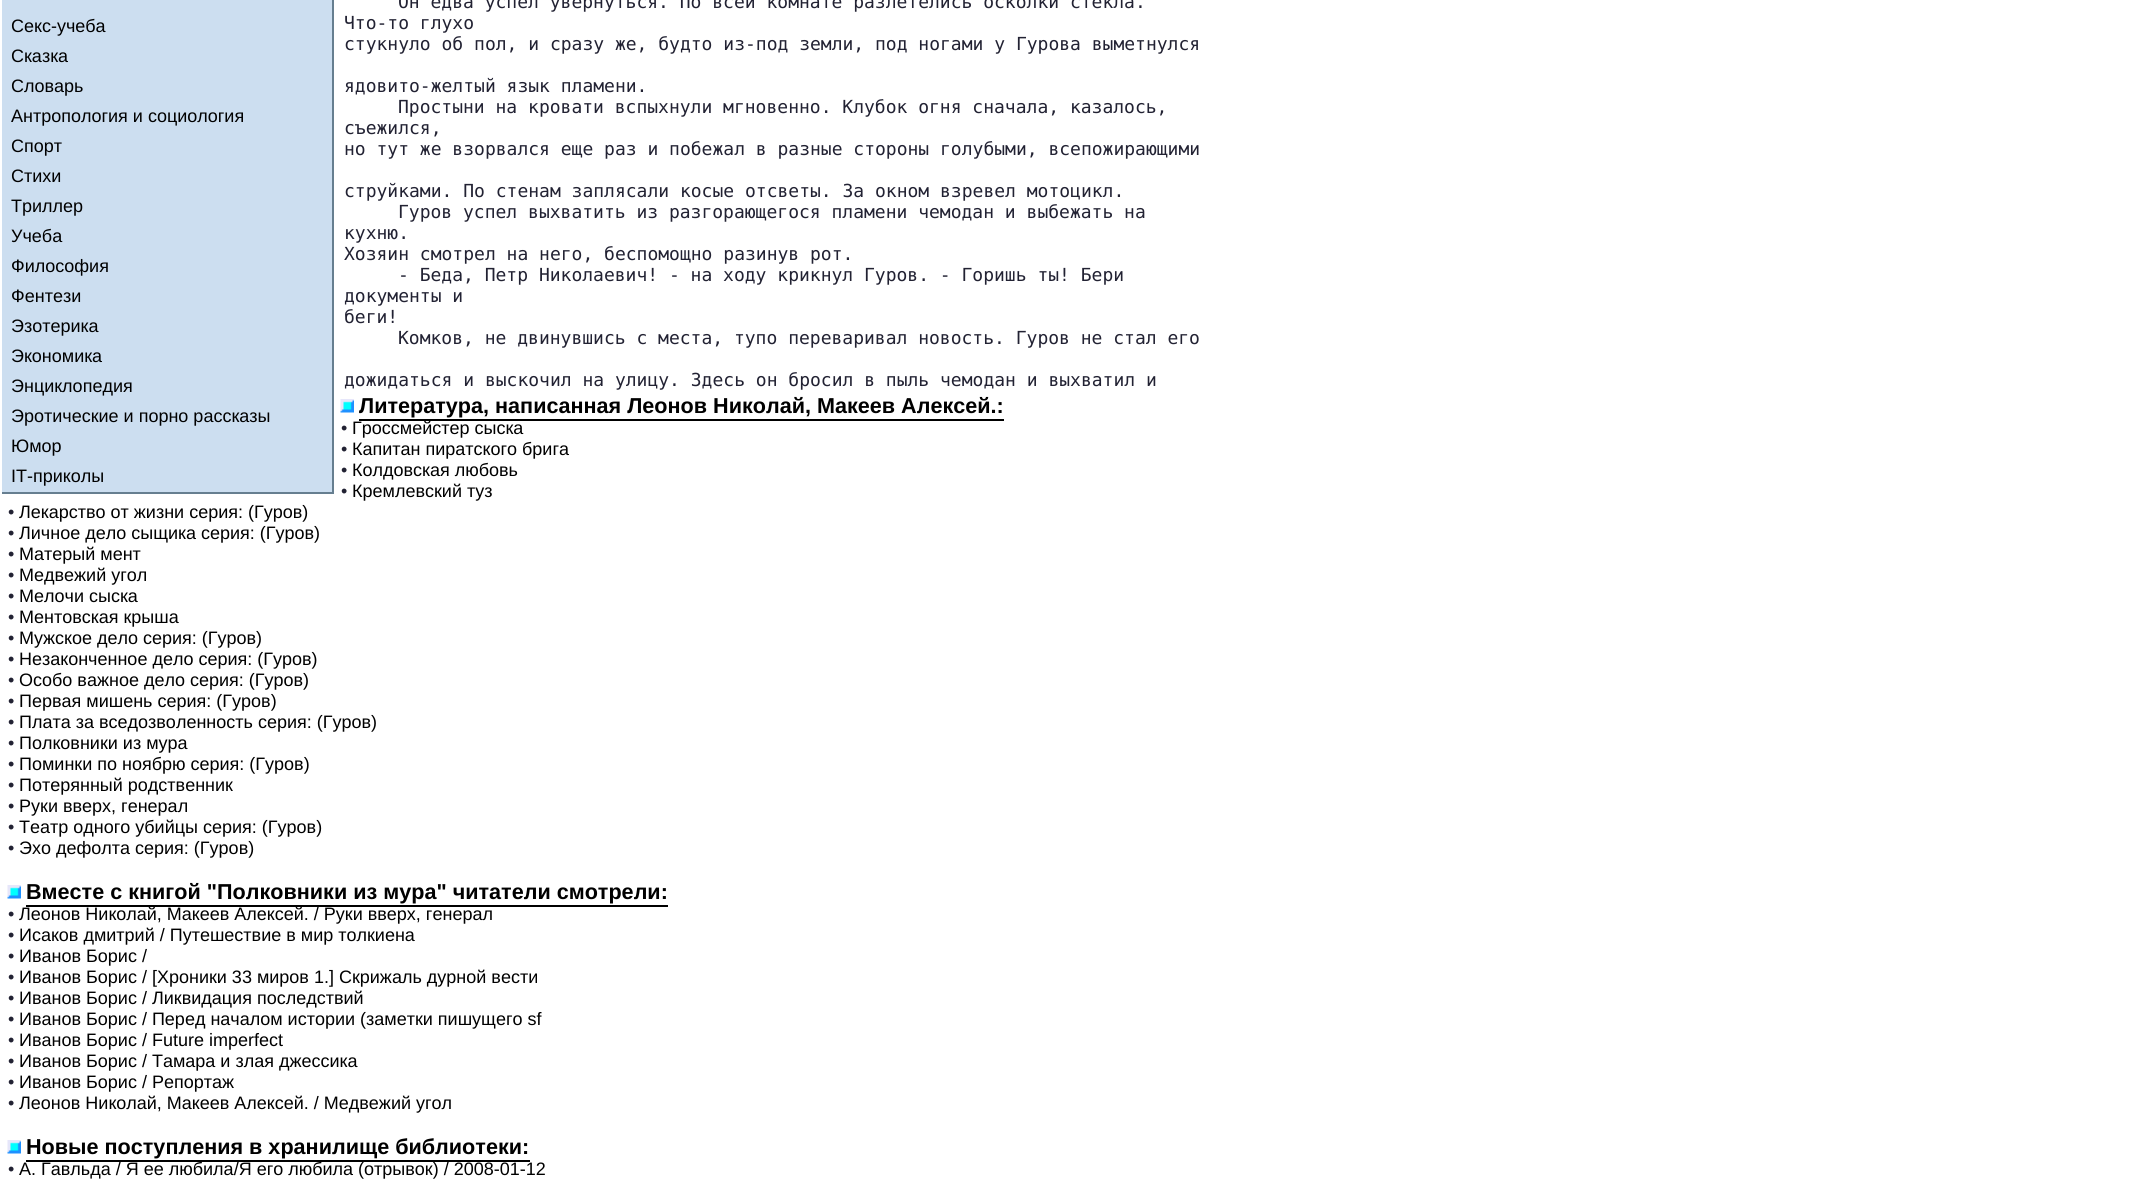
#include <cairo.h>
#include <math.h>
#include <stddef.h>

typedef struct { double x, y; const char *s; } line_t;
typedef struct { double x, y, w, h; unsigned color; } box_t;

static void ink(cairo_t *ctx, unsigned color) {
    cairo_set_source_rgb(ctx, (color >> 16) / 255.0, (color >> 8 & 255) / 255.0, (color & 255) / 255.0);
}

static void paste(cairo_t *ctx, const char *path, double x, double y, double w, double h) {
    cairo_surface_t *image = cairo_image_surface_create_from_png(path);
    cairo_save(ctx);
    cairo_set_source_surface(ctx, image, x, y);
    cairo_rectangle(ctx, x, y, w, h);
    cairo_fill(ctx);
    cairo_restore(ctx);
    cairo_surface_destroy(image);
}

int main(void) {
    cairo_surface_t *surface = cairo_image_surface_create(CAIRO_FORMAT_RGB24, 2152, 1179);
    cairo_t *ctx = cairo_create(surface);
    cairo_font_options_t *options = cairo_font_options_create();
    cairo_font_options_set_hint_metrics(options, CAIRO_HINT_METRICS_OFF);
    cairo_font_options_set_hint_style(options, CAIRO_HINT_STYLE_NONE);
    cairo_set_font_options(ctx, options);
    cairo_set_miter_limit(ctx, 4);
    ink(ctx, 0xFFFFFF);
    cairo_paint(ctx);
    cairo_select_font_face(ctx, "DejaVu Sans Mono", CAIRO_FONT_SLANT_NORMAL, CAIRO_FONT_WEIGHT_NORMAL);
    cairo_set_font_size(ctx, 18);
    ink(ctx, 0x222233);
    {
        static const line_t items[] = {
            {398, 8, "Он едва успел увернуться. По всей комнате разлетелись осколки стекла."},
            {344, 29, "Что-то глухо"},
            {344, 50, "стукнуло об пол, и сразу же, будто из-под земли, под ногами у Гурова выметнулся"},
            {344, 92, "ядовито-желтый язык пламени."},
            {398, 113, "Простыни на кровати вспыхнули мгновенно. Клубок огня сначала, казалось,"},
            {344, 134, "съежился,"},
            {344, 155, "но тут же взорвался еще раз и побежал в разные стороны голубыми, всепожирающими"},
            {344, 197, "струйками. По стенам заплясали косые отсветы. За окном взревел мотоцикл."},
            {398, 218, "Гуров успел выхватить из разгорающегося пламени чемодан и выбежать на"},
            {344, 239, "кухню."},
            {344, 260, "Хозяин смотрел на него, беспомощно разинув рот."},
            {398, 281, "- Беда, Петр Николаевич! - на ходу крикнул Гуров. - Горишь ты! Бери"},
            {344, 302, "документы и"},
            {344, 323, "беги!"},
            {398, 344, "Комков, не двинувшись с места, тупо переваривал новость. Гуров не стал его"},
            {344, 386, "дожидаться и выскочил на улицу. Здесь он бросил в пыль чемодан и выхватил и"},
        };
        for (size_t i = 0; i < sizeof items / sizeof *items; i++) {
            cairo_move_to(ctx, items[i].x, items[i].y);
            cairo_show_text(ctx, items[i].s);
        }
    }
    paste(ctx, "media/1.png", 340, 399, 14, 14);
    cairo_select_font_face(ctx, "Liberation Sans", CAIRO_FONT_SLANT_NORMAL, CAIRO_FONT_WEIGHT_BOLD);
    cairo_set_font_size(ctx, 21.6);
    ink(ctx, 0x000000);
    cairo_move_to(ctx, 359, 413);
    cairo_show_text(ctx, "Литература, написанная Леонов Николай, Макеев Алексей.:");
    cairo_rectangle(ctx, 359, 419, 645, 2);
    cairo_fill(ctx);
    cairo_select_font_face(ctx, "Liberation Sans", CAIRO_FONT_SLANT_NORMAL, CAIRO_FONT_WEIGHT_NORMAL);
    cairo_set_font_size(ctx, 18);
    ink(ctx, 0x222233);
    cairo_move_to(ctx, 341, 434);
    cairo_show_text(ctx, "•");
    ink(ctx, 0x000000);
    cairo_move_to(ctx, 352, 434);
    cairo_show_text(ctx, "Гроссмейстер сыска");
    ink(ctx, 0x222233);
    cairo_move_to(ctx, 341, 455);
    cairo_show_text(ctx, "•");
    ink(ctx, 0x000000);
    cairo_move_to(ctx, 352, 455);
    cairo_show_text(ctx, "Капитан пиратского брига");
    ink(ctx, 0x222233);
    cairo_move_to(ctx, 341, 476);
    cairo_show_text(ctx, "•");
    ink(ctx, 0x000000);
    cairo_move_to(ctx, 352, 476);
    cairo_show_text(ctx, "Колдовская любовь");
    ink(ctx, 0x222233);
    cairo_move_to(ctx, 341, 497);
    cairo_show_text(ctx, "•");
    ink(ctx, 0x000000);
    cairo_move_to(ctx, 352, 497);
    cairo_show_text(ctx, "Кремлевский туз");
    ink(ctx, 0x222233);
    cairo_move_to(ctx, 8, 518);
    cairo_show_text(ctx, "•");
    ink(ctx, 0x000000);
    cairo_move_to(ctx, 19, 518);
    cairo_show_text(ctx, "Лекарство от жизни серия: (Гуров)");
    ink(ctx, 0x222233);
    cairo_move_to(ctx, 8, 539);
    cairo_show_text(ctx, "•");
    ink(ctx, 0x000000);
    cairo_move_to(ctx, 19, 539);
    cairo_show_text(ctx, "Личное дело сыщика серия: (Гуров)");
    ink(ctx, 0x222233);
    cairo_move_to(ctx, 8, 560);
    cairo_show_text(ctx, "•");
    ink(ctx, 0x000000);
    cairo_move_to(ctx, 19, 560);
    cairo_show_text(ctx, "Матерый мент");
    ink(ctx, 0x222233);
    cairo_move_to(ctx, 8, 581);
    cairo_show_text(ctx, "•");
    ink(ctx, 0x000000);
    cairo_move_to(ctx, 19, 581);
    cairo_show_text(ctx, "Медвежий угол");
    ink(ctx, 0x222233);
    cairo_move_to(ctx, 8, 602);
    cairo_show_text(ctx, "•");
    ink(ctx, 0x000000);
    cairo_move_to(ctx, 19, 602);
    cairo_show_text(ctx, "Мелочи сыска");
    ink(ctx, 0x222233);
    cairo_move_to(ctx, 8, 623);
    cairo_show_text(ctx, "•");
    ink(ctx, 0x000000);
    cairo_move_to(ctx, 19, 623);
    cairo_show_text(ctx, "Ментовская крыша");
    ink(ctx, 0x222233);
    cairo_move_to(ctx, 8, 644);
    cairo_show_text(ctx, "•");
    ink(ctx, 0x000000);
    cairo_move_to(ctx, 19, 644);
    cairo_show_text(ctx, "Мужское дело серия: (Гуров)");
    ink(ctx, 0x222233);
    cairo_move_to(ctx, 8, 665);
    cairo_show_text(ctx, "•");
    ink(ctx, 0x000000);
    cairo_move_to(ctx, 19, 665);
    cairo_show_text(ctx, "Незаконченное дело серия: (Гуров)");
    ink(ctx, 0x222233);
    cairo_move_to(ctx, 8, 686);
    cairo_show_text(ctx, "•");
    ink(ctx, 0x000000);
    cairo_move_to(ctx, 19, 686);
    cairo_show_text(ctx, "Особо важное дело серия: (Гуров)");
    ink(ctx, 0x222233);
    cairo_move_to(ctx, 8, 707);
    cairo_show_text(ctx, "•");
    ink(ctx, 0x000000);
    cairo_move_to(ctx, 19, 707);
    cairo_show_text(ctx, "Первая мишень серия: (Гуров)");
    ink(ctx, 0x222233);
    cairo_move_to(ctx, 8, 728);
    cairo_show_text(ctx, "•");
    ink(ctx, 0x000000);
    cairo_move_to(ctx, 19, 728);
    cairo_show_text(ctx, "Плата за вседозволенность серия: (Гуров)");
    ink(ctx, 0x222233);
    cairo_move_to(ctx, 8, 749);
    cairo_show_text(ctx, "•");
    ink(ctx, 0x000000);
    cairo_move_to(ctx, 19, 749);
    cairo_show_text(ctx, "Полковники из мура");
    ink(ctx, 0x222233);
    cairo_move_to(ctx, 8, 770);
    cairo_show_text(ctx, "•");
    ink(ctx, 0x000000);
    cairo_move_to(ctx, 19, 770);
    cairo_show_text(ctx, "Поминки по ноябрю серия: (Гуров)");
    ink(ctx, 0x222233);
    cairo_move_to(ctx, 8, 791);
    cairo_show_text(ctx, "•");
    ink(ctx, 0x000000);
    cairo_move_to(ctx, 19, 791);
    cairo_show_text(ctx, "Потерянный родственник");
    ink(ctx, 0x222233);
    cairo_move_to(ctx, 8, 812);
    cairo_show_text(ctx, "•");
    ink(ctx, 0x000000);
    cairo_move_to(ctx, 19, 812);
    cairo_show_text(ctx, "Руки вверх, генерал");
    ink(ctx, 0x222233);
    cairo_move_to(ctx, 8, 833);
    cairo_show_text(ctx, "•");
    ink(ctx, 0x000000);
    cairo_move_to(ctx, 19, 833);
    cairo_show_text(ctx, "Театр одного убийцы серия: (Гуров)");
    ink(ctx, 0x222233);
    cairo_move_to(ctx, 8, 854);
    cairo_show_text(ctx, "•");
    ink(ctx, 0x000000);
    cairo_move_to(ctx, 19, 854);
    cairo_show_text(ctx, "Эхо дефолта серия: (Гуров)");
    paste(ctx, "media/1.png", 7, 885, 14, 14);
    cairo_select_font_face(ctx, "Liberation Sans", CAIRO_FONT_SLANT_NORMAL, CAIRO_FONT_WEIGHT_BOLD);
    cairo_set_font_size(ctx, 21.6);
    cairo_move_to(ctx, 26, 899);
    cairo_show_text(ctx, "Вместе с книгой \"Полковники из мура\" читатели смотрели:");
    cairo_rectangle(ctx, 26, 905, 642, 2);
    cairo_fill(ctx);
    cairo_select_font_face(ctx, "Liberation Sans", CAIRO_FONT_SLANT_NORMAL, CAIRO_FONT_WEIGHT_NORMAL);
    cairo_set_font_size(ctx, 18);
    ink(ctx, 0x222233);
    cairo_move_to(ctx, 8, 920);
    cairo_show_text(ctx, "•");
    ink(ctx, 0x000000);
    cairo_move_to(ctx, 19, 920);
    cairo_show_text(ctx, "Леонов Николай, Макеев Алексей. / Руки вверх, генерал");
    ink(ctx, 0x222233);
    cairo_move_to(ctx, 8, 941);
    cairo_show_text(ctx, "•");
    ink(ctx, 0x000000);
    cairo_move_to(ctx, 19, 941);
    cairo_show_text(ctx, "Исаков дмитрий / Путешествие в мир толкиена");
    ink(ctx, 0x222233);
    cairo_move_to(ctx, 8, 962);
    cairo_show_text(ctx, "•");
    ink(ctx, 0x000000);
    cairo_move_to(ctx, 19, 962);
    cairo_show_text(ctx, "Иванов Борис /");
    ink(ctx, 0x222233);
    cairo_move_to(ctx, 8, 983);
    cairo_show_text(ctx, "•");
    ink(ctx, 0x000000);
    cairo_move_to(ctx, 19, 983);
    cairo_show_text(ctx, "Иванов Борис / [Хроники 33 миров 1.] Скрижаль дурной вести");
    ink(ctx, 0x222233);
    cairo_move_to(ctx, 8, 1004);
    cairo_show_text(ctx, "•");
    ink(ctx, 0x000000);
    cairo_move_to(ctx, 19, 1004);
    cairo_show_text(ctx, "Иванов Борис / Ликвидация последствий");
    ink(ctx, 0x222233);
    cairo_move_to(ctx, 8, 1025);
    cairo_show_text(ctx, "•");
    ink(ctx, 0x000000);
    cairo_move_to(ctx, 19, 1025);
    cairo_show_text(ctx, "Иванов Борис / Перед началом истории (заметки пишущего sf");
    ink(ctx, 0x222233);
    cairo_move_to(ctx, 8, 1046);
    cairo_show_text(ctx, "•");
    ink(ctx, 0x000000);
    cairo_move_to(ctx, 19, 1046);
    cairo_show_text(ctx, "Иванов Борис / Future imperfect");
    ink(ctx, 0x222233);
    cairo_move_to(ctx, 8, 1067);
    cairo_show_text(ctx, "•");
    ink(ctx, 0x000000);
    cairo_move_to(ctx, 19, 1067);
    cairo_show_text(ctx, "Иванов Борис / Тамара и злая джессика");
    ink(ctx, 0x222233);
    cairo_move_to(ctx, 8, 1088);
    cairo_show_text(ctx, "•");
    ink(ctx, 0x000000);
    cairo_move_to(ctx, 19, 1088);
    cairo_show_text(ctx, "Иванов Борис / Репортаж");
    ink(ctx, 0x222233);
    cairo_move_to(ctx, 8, 1109);
    cairo_show_text(ctx, "•");
    ink(ctx, 0x000000);
    cairo_move_to(ctx, 19, 1109);
    cairo_show_text(ctx, "Леонов Николай, Макеев Алексей. / Медвежий угол");
    paste(ctx, "media/1.png", 7, 1140, 14, 14);
    cairo_select_font_face(ctx, "Liberation Sans", CAIRO_FONT_SLANT_NORMAL, CAIRO_FONT_WEIGHT_BOLD);
    cairo_set_font_size(ctx, 21.6);
    cairo_move_to(ctx, 26, 1154);
    cairo_show_text(ctx, "Новые поступления в хранилище библиотеки:");
    cairo_rectangle(ctx, 26, 1160, 504, 2);
    cairo_fill(ctx);
    cairo_select_font_face(ctx, "Liberation Sans", CAIRO_FONT_SLANT_NORMAL, CAIRO_FONT_WEIGHT_NORMAL);
    cairo_set_font_size(ctx, 18);
    ink(ctx, 0x222233);
    cairo_move_to(ctx, 8, 1175);
    cairo_show_text(ctx, "•");
    ink(ctx, 0x000000);
    cairo_move_to(ctx, 19, 1175);
    cairo_show_text(ctx, "А. Гавльда / Я ее любила/Я его любила (отрывок) / 2008-01-12");
    {
        static const box_t items[] = {
            {2, 0, 330, 492, 0xCCDEF0},
            {332, 0, 2, 494, 0x667E90},
            {0, 492, 333, 2, 0x667E90},
            {0, 492, 2, 2, 0xFFFFFF},
        };
        for (size_t i = 0; i < sizeof items / sizeof *items; i++) {
            ink(ctx, items[i].color);
            cairo_rectangle(ctx, items[i].x, items[i].y, items[i].w, items[i].h);
            cairo_fill(ctx);
        }
    }
    ink(ctx, 0x000000);
    {
        static const line_t items[] = {
            {11, 32, "Секс-учеба"},
            {11, 62, "Сказка"},
            {11, 92, "Словарь"},
            {11, 122, "Антропология и социология"},
            {11, 152, "Спорт"},
            {11, 182, "Стихи"},
            {11, 212, "Триллер"},
            {11, 242, "Учеба"},
            {11, 272, "Философия"},
            {11, 302, "Фентези"},
            {11, 332, "Эзотерика"},
            {11, 362, "Экономика"},
            {11, 392, "Энциклопедия"},
            {11, 422, "Эротические и порно рассказы"},
            {11, 452, "Юмор"},
            {11, 482, "IT-приколы"},
        };
        for (size_t i = 0; i < sizeof items / sizeof *items; i++) {
            cairo_move_to(ctx, items[i].x, items[i].y);
            cairo_show_text(ctx, items[i].s);
        }
    }
    cairo_surface_write_to_png(surface, "image.png");
    cairo_font_options_destroy(options);
    cairo_destroy(ctx);
    cairo_surface_destroy(surface);
    return 0;
}
